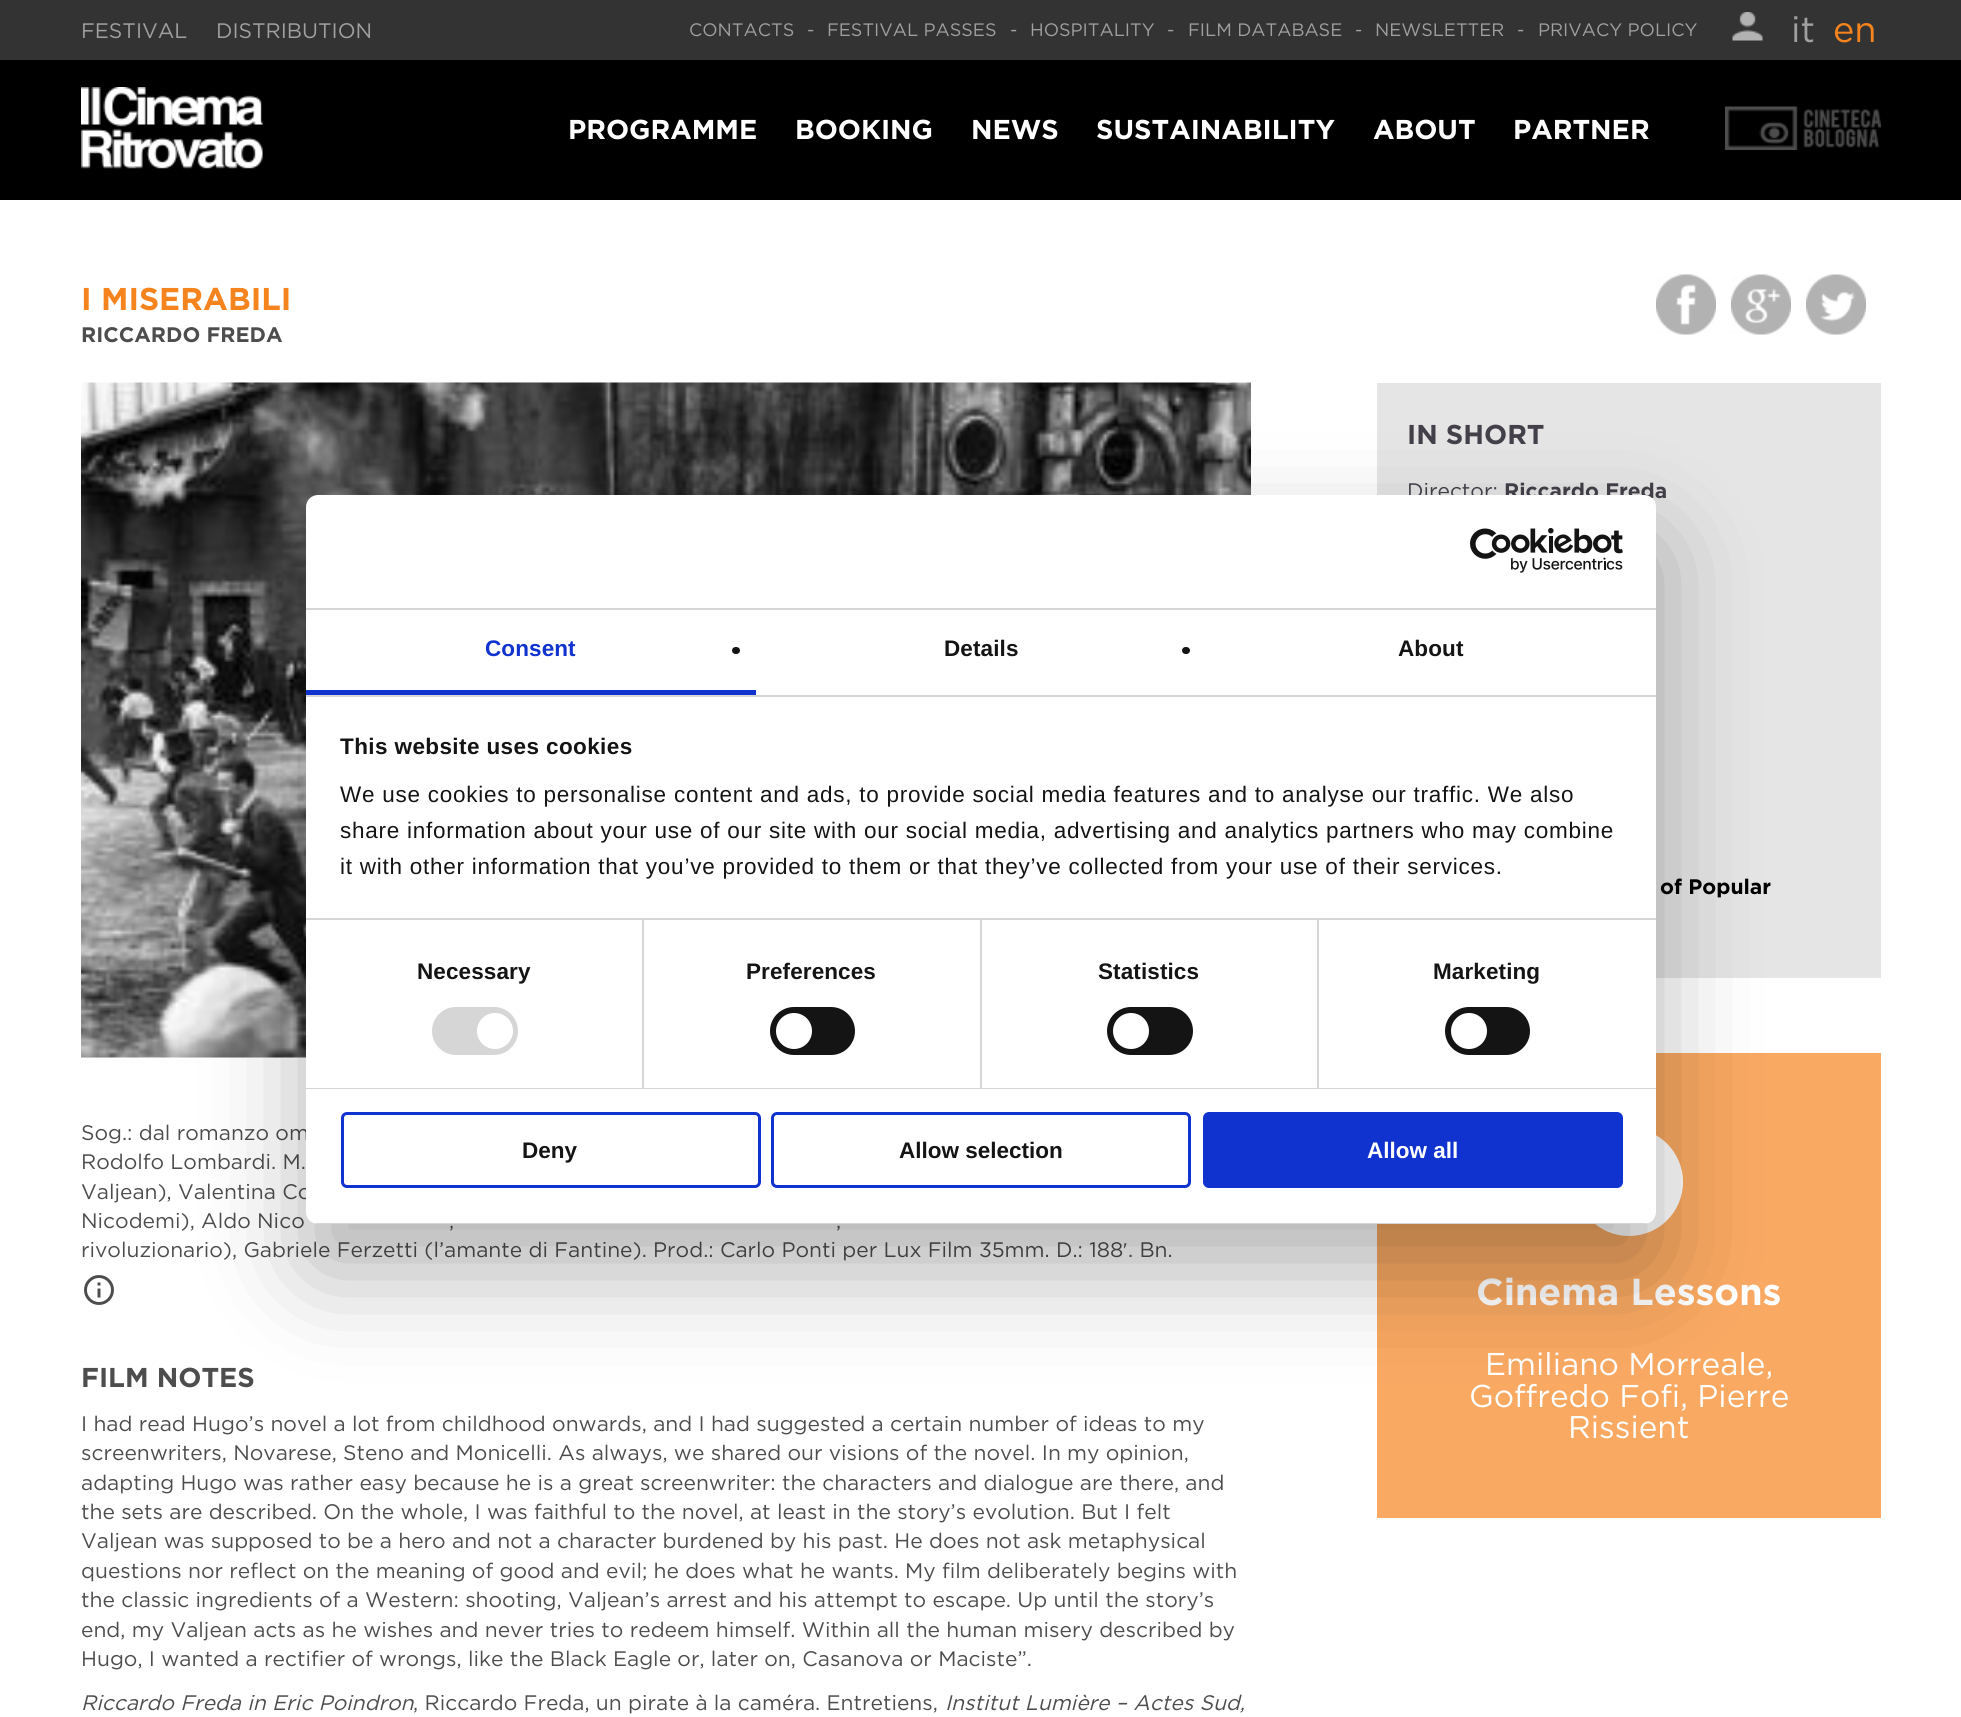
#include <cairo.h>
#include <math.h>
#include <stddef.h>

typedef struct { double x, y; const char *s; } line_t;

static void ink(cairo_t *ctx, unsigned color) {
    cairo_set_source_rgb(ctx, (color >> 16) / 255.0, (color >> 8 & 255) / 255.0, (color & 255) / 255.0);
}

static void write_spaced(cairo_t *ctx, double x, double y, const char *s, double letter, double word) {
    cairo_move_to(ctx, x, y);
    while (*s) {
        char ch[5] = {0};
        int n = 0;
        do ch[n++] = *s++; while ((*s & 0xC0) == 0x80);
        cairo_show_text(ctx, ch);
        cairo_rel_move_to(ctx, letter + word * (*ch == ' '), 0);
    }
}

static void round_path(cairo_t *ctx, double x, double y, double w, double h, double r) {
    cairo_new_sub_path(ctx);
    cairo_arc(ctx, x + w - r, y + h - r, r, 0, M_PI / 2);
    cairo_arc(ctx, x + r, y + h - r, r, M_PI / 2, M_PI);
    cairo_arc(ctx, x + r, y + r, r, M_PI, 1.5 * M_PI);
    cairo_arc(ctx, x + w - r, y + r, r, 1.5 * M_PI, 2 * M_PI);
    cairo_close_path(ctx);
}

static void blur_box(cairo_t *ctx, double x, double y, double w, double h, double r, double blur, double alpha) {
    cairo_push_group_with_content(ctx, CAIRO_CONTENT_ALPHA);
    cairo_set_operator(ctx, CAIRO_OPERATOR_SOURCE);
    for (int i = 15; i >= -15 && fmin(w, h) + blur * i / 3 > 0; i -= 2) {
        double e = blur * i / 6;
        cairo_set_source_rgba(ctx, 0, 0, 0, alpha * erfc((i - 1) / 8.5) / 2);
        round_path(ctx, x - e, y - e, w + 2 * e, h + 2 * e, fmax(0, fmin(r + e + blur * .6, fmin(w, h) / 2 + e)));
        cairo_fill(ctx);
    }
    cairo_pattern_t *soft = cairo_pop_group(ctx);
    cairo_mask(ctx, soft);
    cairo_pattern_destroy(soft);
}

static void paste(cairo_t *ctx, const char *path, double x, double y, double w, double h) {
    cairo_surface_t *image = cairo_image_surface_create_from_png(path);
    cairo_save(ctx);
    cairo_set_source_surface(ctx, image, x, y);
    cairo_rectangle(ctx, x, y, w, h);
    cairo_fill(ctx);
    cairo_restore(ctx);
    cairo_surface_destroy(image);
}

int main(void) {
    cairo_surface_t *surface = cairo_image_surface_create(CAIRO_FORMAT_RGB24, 1961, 1717);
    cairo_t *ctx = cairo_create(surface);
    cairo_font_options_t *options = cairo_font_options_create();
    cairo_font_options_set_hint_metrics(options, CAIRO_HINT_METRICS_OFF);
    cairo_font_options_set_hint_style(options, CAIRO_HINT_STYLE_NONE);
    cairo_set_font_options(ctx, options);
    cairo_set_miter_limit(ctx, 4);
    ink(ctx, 0xFFFFFF);
    cairo_paint(ctx);
    ink(ctx, 0x333333);
    cairo_rectangle(ctx, 0, 0, 1961, 60);
    cairo_fill(ctx);
    cairo_select_font_face(ctx, "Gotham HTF", CAIRO_FONT_SLANT_NORMAL, CAIRO_FONT_WEIGHT_NORMAL);
    cairo_set_font_size(ctx, 21);
    ink(ctx, 0xA0A0A0);
    cairo_move_to(ctx, 81, 38);
    cairo_show_text(ctx, "FESTIVAL");
    cairo_move_to(ctx, 216, 38);
    cairo_show_text(ctx, "DISTRIBUTION");
    cairo_set_font_size(ctx, 18);
    {
        static const line_t items[] = {
            {689, 36, "CONTACTS"},
            {807, 36, "-"},
            {827, 36, "FESTIVAL PASSES"},
            {1010, 36, "-"},
            {1030, 36, "HOSPITALITY"},
            {1167, 36, "-"},
            {1188, 36, "FILM DATABASE"},
            {1355, 36, "-"},
            {1375, 36, "NEWSLETTER"},
            {1517, 36, "-"},
            {1538, 36, "PRIVACY POLICY"},
        };
        for (size_t i = 0; i < sizeof items / sizeof *items; i++) {
            cairo_move_to(ctx, items[i].x, items[i].y);
            cairo_show_text(ctx, items[i].s);
        }
    }
    paste(ctx, "media/1.png", 1732, 12, 31, 29);
    cairo_set_font_size(ctx, 36);
    cairo_move_to(ctx, 1791, 42);
    cairo_show_text(ctx, "it");
    ink(ctx, 0xF6841E);
    cairo_move_to(ctx, 1833, 42);
    cairo_show_text(ctx, "en");
    ink(ctx, 0x000000);
    cairo_rectangle(ctx, 0, 60, 1961, 140);
    cairo_fill(ctx);
    paste(ctx, "media/2.png", 81, 87, 182, 82);
    cairo_select_font_face(ctx, "Gotham", CAIRO_FONT_SLANT_NORMAL, CAIRO_FONT_WEIGHT_BOLD);
    cairo_set_font_size(ctx, 27.25);
    ink(ctx, 0xFFFFFF);
    {
        static const line_t items[] = {
            {568, 139, "PROGRAMME"},
            {795, 139, "BOOKING"},
            {971, 139, "NEWS"},
            {1096, 139, "SUSTAINABILITY"},
            {1373, 139, "ABOUT"},
            {1513, 139, "PARTNER"},
        };
        for (size_t i = 0; i < sizeof items / sizeof *items; i++) {
            cairo_move_to(ctx, items[i].x, items[i].y);
            cairo_show_text(ctx, items[i].s);
        }
    }
    paste(ctx, "media/3.png", 1725, 106, 156, 44);
    cairo_set_font_size(ctx, 31.5);
    ink(ctx, 0xF6841E);
    cairo_move_to(ctx, 81, 310);
    cairo_show_text(ctx, "I MISERABILI");
    cairo_set_font_size(ctx, 21);
    ink(ctx, 0x4D4D4D);
    cairo_move_to(ctx, 81, 342);
    cairo_show_text(ctx, "RICCARDO FREDA");
    paste(ctx, "media/4.png", 1656, 274, 60, 61);
    paste(ctx, "media/5.png", 1731, 274, 60, 61);
    paste(ctx, "media/6.png", 1806, 274, 60, 61);
    paste(ctx, "media/7.png", 81, 382, 1170, 676);
    cairo_select_font_face(ctx, "Gotham HTF", CAIRO_FONT_SLANT_NORMAL, CAIRO_FONT_WEIGHT_NORMAL);
    {
        static const line_t items[] = {
            {81, 1140, "Sog.: dal romanzo om"},
            {81, 1169, "Rodolfo Lombardi. M."},
            {81, 1199, "Valjean), Valentina Co"},
            {81, 1228, "Nicodemi), Aldo Nico"},
            {449, 1228, ","},
            {836, 1228, ","},
            {81, 1257, "rivoluzionario), Gabriele Ferzetti (l’amante di Fantine). Prod.: Carlo Ponti per Lux Film 35mm. D.: 188"},
        };
        for (size_t i = 0; i < sizeof items / sizeof *items; i++) {
            cairo_move_to(ctx, items[i].x, items[i].y);
            cairo_show_text(ctx, items[i].s);
        }
    }
    cairo_select_font_face(ctx, "Liberation Serif", CAIRO_FONT_SLANT_NORMAL, CAIRO_FONT_WEIGHT_NORMAL);
    cairo_move_to(ctx, 1123, 1257);
    cairo_show_text(ctx, "′");
    cairo_select_font_face(ctx, "Gotham HTF", CAIRO_FONT_SLANT_NORMAL, CAIRO_FONT_WEIGHT_NORMAL);
    cairo_move_to(ctx, 1128, 1257);
    cairo_show_text(ctx, ". Bn.");
    paste(ctx, "media/8.png", 84, 1275, 30, 30);
    cairo_select_font_face(ctx, "Gotham", CAIRO_FONT_SLANT_NORMAL, CAIRO_FONT_WEIGHT_BOLD);
    cairo_set_font_size(ctx, 27.25);
    cairo_move_to(ctx, 81, 1387);
    cairo_show_text(ctx, "FILM NOTES");
    cairo_select_font_face(ctx, "Gotham HTF", CAIRO_FONT_SLANT_NORMAL, CAIRO_FONT_WEIGHT_NORMAL);
    cairo_set_font_size(ctx, 21);
    {
        static const line_t items[] = {
            {81, 1431, "I had read Hugo’s novel a lot from childhood onwards, and I had suggested a certain number of ideas to my"},
            {81, 1460, "screenwriters, Novarese, Steno and Monicelli. As always, we shared our visions of the novel. In my opinion,"},
            {81, 1490, "adapting Hugo was rather easy because he is a great screenwriter: the characters and dialogue are there, and"},
            {81, 1519, "the sets are described. On the whole, I was faithful to the novel, at least in the story’s evolution. But I felt"},
            {81, 1548, "Valjean was supposed to be a hero and not a character burdened by his past. He does not ask metaphysical"},
            {81, 1578, "questions nor reflect on the meaning of good and evil; he does what he wants. My film deliberately begins with"},
            {81, 1607, "the classic ingredients of a Western: shooting, Valjean’s arrest and his attempt to escape. Up until the story’s"},
            {81, 1637, "end, my Valjean acts as he wishes and never tries to redeem himself. Within all the human misery described by"},
            {81, 1666, "Hugo, I wanted a rectifier of wrongs, like the Black Eagle or, later on, Casanova or Maciste”."},
        };
        for (size_t i = 0; i < sizeof items / sizeof *items; i++) {
            cairo_move_to(ctx, items[i].x, items[i].y);
            cairo_show_text(ctx, items[i].s);
        }
    }
    cairo_select_font_face(ctx, "Gotham HTF", CAIRO_FONT_SLANT_ITALIC, CAIRO_FONT_WEIGHT_NORMAL);
    cairo_move_to(ctx, 81, 1710);
    cairo_show_text(ctx, "Riccardo Freda in Eric Poindron");
    cairo_select_font_face(ctx, "Gotham HTF", CAIRO_FONT_SLANT_NORMAL, CAIRO_FONT_WEIGHT_NORMAL);
    cairo_move_to(ctx, 413, 1710);
    cairo_show_text(ctx, ", Riccardo Freda, un pirate à la caméra. Entretiens,");
    cairo_select_font_face(ctx, "Gotham HTF", CAIRO_FONT_SLANT_ITALIC, CAIRO_FONT_WEIGHT_NORMAL);
    cairo_move_to(ctx, 945, 1710);
    cairo_show_text(ctx, "Institut Lumière – Actes Sud,");
    ink(ctx, 0xE5E5E5);
    cairo_rectangle(ctx, 1377, 383, 504, 595);
    cairo_fill(ctx);
    cairo_select_font_face(ctx, "Gotham", CAIRO_FONT_SLANT_NORMAL, CAIRO_FONT_WEIGHT_BOLD);
    cairo_set_font_size(ctx, 27.25);
    ink(ctx, 0x434049);
    cairo_move_to(ctx, 1407, 444);
    cairo_show_text(ctx, "IN SHORT");
    cairo_select_font_face(ctx, "Gotham HTF", CAIRO_FONT_SLANT_NORMAL, CAIRO_FONT_WEIGHT_NORMAL);
    cairo_set_font_size(ctx, 21);
    cairo_move_to(ctx, 1407, 498);
    cairo_show_text(ctx, "Director:");
    cairo_select_font_face(ctx, "Gotham", CAIRO_FONT_SLANT_NORMAL, CAIRO_FONT_WEIGHT_BOLD);
    cairo_move_to(ctx, 1504, 498);
    cairo_show_text(ctx, "Riccardo Freda");
    ink(ctx, 0x000000);
    cairo_move_to(ctx, 1660, 894);
    cairo_show_text(ctx, "of Popular");
    ink(ctx, 0xF9A962);
    cairo_rectangle(ctx, 1377, 1053, 504, 465);
    cairo_fill(ctx);
    ink(ctx, 0xFFFFFF);
    cairo_arc(ctx, 1629, 1182, 54, 0, 2 * M_PI);
    cairo_fill(ctx);
    cairo_set_font_size(ctx, 37.5);
    cairo_move_to(ctx, 1476, 1305);
    cairo_show_text(ctx, "Cinema Lessons");
    cairo_select_font_face(ctx, "Gotham HTF", CAIRO_FONT_SLANT_NORMAL, CAIRO_FONT_WEIGHT_NORMAL);
    cairo_set_font_size(ctx, 31.5);
    {
        static const line_t items[] = {
            {1485, 1375, "Emiliano Morreale,"},
            {1469, 1407, "Goffredo Fofi, Pierre"},
            {1568, 1438, "Rissient"},
        };
        for (size_t i = 0; i < sizeof items / sizeof *items; i++) {
            cairo_move_to(ctx, items[i].x, items[i].y);
            cairo_show_text(ctx, items[i].s);
        }
    }
    ink(ctx, 0x000000);
    blur_box(ctx, 306, 543, 1350, 729, 12, 51, 0.3);
    ink(ctx, 0xFFFFFF);
    round_path(ctx, 306, 495, 1350, 729, 12);
    cairo_fill(ctx);
    ink(ctx, 0xD6D6D6);
    cairo_rectangle(ctx, 306, 608, 1350, 2);
    cairo_fill(ctx);
    paste(ctx, "media/9.png", 1470, 528, 153, 45);
    cairo_rectangle(ctx, 306, 695, 1350, 2);
    cairo_fill(ctx);
    ink(ctx, 0x1032CF);
    cairo_rectangle(ctx, 306, 690, 450, 5);
    cairo_fill(ctx);
    cairo_select_font_face(ctx, "Liberation Sans", CAIRO_FONT_SLANT_NORMAL, CAIRO_FONT_WEIGHT_BOLD);
    cairo_set_font_size(ctx, 22.5);
    write_spaced(ctx, 485, 656, "Consent", 0.1, 0);
    ink(ctx, 0x141414);
    round_path(ctx, 732, 647, 8, 7, 3.5);
    cairo_fill(ctx);
    write_spaced(ctx, 944, 656, "Details", 0.1, 0);
    round_path(ctx, 1182, 647, 8, 7, 3.5);
    cairo_fill(ctx);
    write_spaced(ctx, 1398, 656, "About", 0.1, 0);
    ink(ctx, 0xD6D6D6);
    cairo_rectangle(ctx, 306, 918, 1350, 2);
    cairo_fill(ctx);
    ink(ctx, 0x141414);
    write_spaced(ctx, 340, 754, "This website uses cookies", 0.4, 0);
    cairo_select_font_face(ctx, "Liberation Sans", CAIRO_FONT_SLANT_NORMAL, CAIRO_FONT_WEIGHT_NORMAL);
    {
        static const line_t items[] = {
            {340, 802, "We use cookies to personalise content and ads, to provide social media features and to analyse our traffic. We also"},
            {340, 838, "share information about your use of our site with our social media, advertising and analytics partners who may combine"},
            {340, 874, "it with other information that you’ve provided to them or that they’ve collected from your use of their services."},
        };
        for (size_t i = 0; i < sizeof items / sizeof *items; i++) {
            write_spaced(ctx, items[i].x, items[i].y, items[i].s, 0.75, 0);
        }
    }
    ink(ctx, 0xD6D6D6);
    cairo_rectangle(ctx, 306, 1088, 1350, 1);
    cairo_fill(ctx);
    cairo_rectangle(ctx, 642, 920, 2, 168);
    cairo_fill(ctx);
    cairo_select_font_face(ctx, "Liberation Sans", CAIRO_FONT_SLANT_NORMAL, CAIRO_FONT_WEIGHT_BOLD);
    ink(ctx, 0x141414);
    write_spaced(ctx, 417, 979, "Necessary", 0.1, 0);
    ink(ctx, 0xD6D6D6);
    round_path(ctx, 432, 1007, 86, 48, 24);
    cairo_fill(ctx);
    ink(ctx, 0xFFFFFF);
    cairo_arc(ctx, 495, 1031, 18, 0, 2 * M_PI);
    cairo_fill(ctx);
    ink(ctx, 0xD6D6D6);
    cairo_rectangle(ctx, 980, 920, 2, 168);
    cairo_fill(ctx);
    ink(ctx, 0x141414);
    write_spaced(ctx, 746, 979, "Preferences", 0.1, 0);
    round_path(ctx, 770, 1007, 85, 48, 24);
    cairo_fill(ctx);
    ink(ctx, 0xFFFFFF);
    cairo_arc(ctx, 794, 1031, 18, 0, 2 * M_PI);
    cairo_fill(ctx);
    ink(ctx, 0xD6D6D6);
    cairo_rectangle(ctx, 1317, 920, 2, 168);
    cairo_fill(ctx);
    ink(ctx, 0x141414);
    write_spaced(ctx, 1098, 979, "Statistics", 0.1, 0);
    round_path(ctx, 1107, 1007, 86, 48, 24);
    cairo_fill(ctx);
    ink(ctx, 0xFFFFFF);
    cairo_arc(ctx, 1131, 1031, 18, 0, 2 * M_PI);
    cairo_fill(ctx);
    ink(ctx, 0x141414);
    write_spaced(ctx, 1433, 979, "Marketing", 0.1, 0);
    round_path(ctx, 1445, 1007, 85, 48, 24);
    cairo_fill(ctx);
    ink(ctx, 0xFFFFFF);
    cairo_arc(ctx, 1469, 1031, 18, 0, 2 * M_PI);
    cairo_fill(ctx);
    cairo_save(ctx);
    round_path(ctx, 306, 495, 1350, 729, 12);
    cairo_clip(ctx);
    ink(ctx, 0xD6D6D6);
    cairo_rectangle(ctx, 306, 1223, 1350, 1);
    cairo_fill(ctx);
    cairo_restore(ctx);
    round_path(ctx, 342.5, 1113.5, 417, 73, 4.5);
    ink(ctx, 0x1032CF);
    cairo_set_line_width(ctx, 3);
    cairo_stroke(ctx);
    ink(ctx, 0x141414);
    cairo_move_to(ctx, 522, 1158);
    cairo_show_text(ctx, "Deny");
    round_path(ctx, 772.5, 1113.5, 417, 73, 4.5);
    ink(ctx, 0x1032CF);
    cairo_stroke(ctx);
    ink(ctx, 0x141414);
    cairo_move_to(ctx, 899, 1158);
    cairo_show_text(ctx, "Allow selection");
    ink(ctx, 0x1032CF);
    round_path(ctx, 1204.5, 1113.5, 417, 73, 4.5);
    cairo_fill_preserve(ctx);
    cairo_stroke(ctx);
    ink(ctx, 0xFFFFFF);
    cairo_move_to(ctx, 1367, 1158);
    cairo_show_text(ctx, "Allow all");
    cairo_surface_write_to_png(surface, "image.png");
    cairo_font_options_destroy(options);
    cairo_destroy(ctx);
    cairo_surface_destroy(surface);
    return 0;
}
